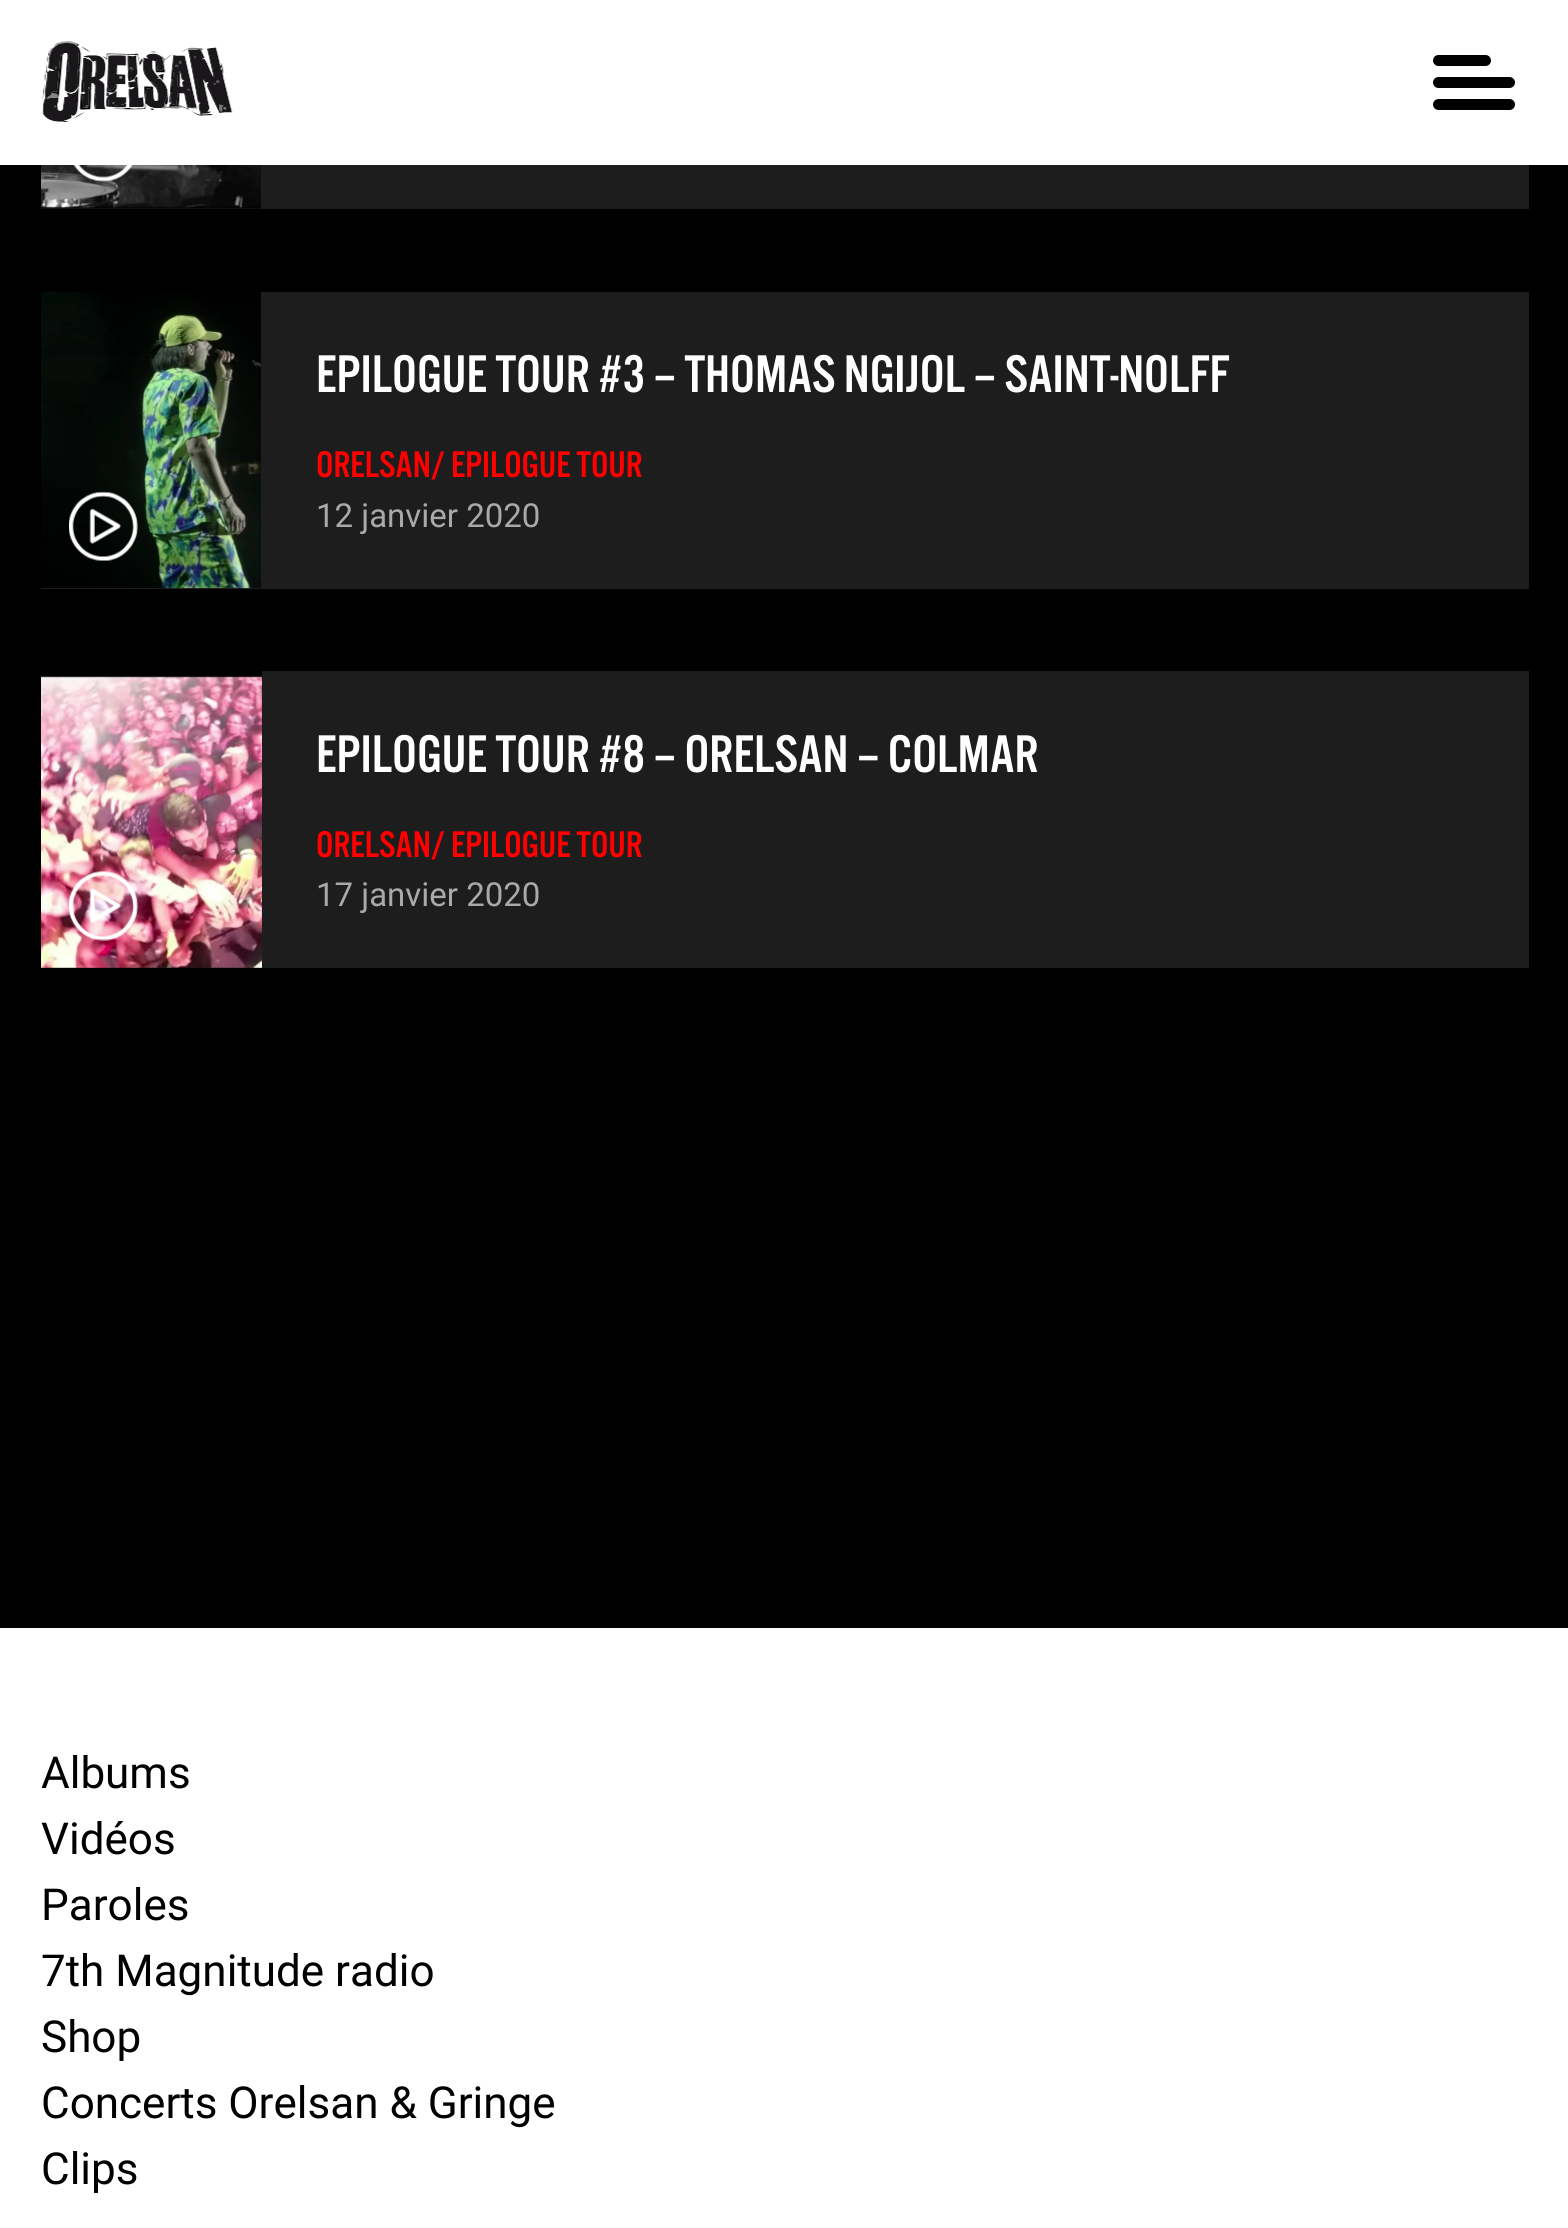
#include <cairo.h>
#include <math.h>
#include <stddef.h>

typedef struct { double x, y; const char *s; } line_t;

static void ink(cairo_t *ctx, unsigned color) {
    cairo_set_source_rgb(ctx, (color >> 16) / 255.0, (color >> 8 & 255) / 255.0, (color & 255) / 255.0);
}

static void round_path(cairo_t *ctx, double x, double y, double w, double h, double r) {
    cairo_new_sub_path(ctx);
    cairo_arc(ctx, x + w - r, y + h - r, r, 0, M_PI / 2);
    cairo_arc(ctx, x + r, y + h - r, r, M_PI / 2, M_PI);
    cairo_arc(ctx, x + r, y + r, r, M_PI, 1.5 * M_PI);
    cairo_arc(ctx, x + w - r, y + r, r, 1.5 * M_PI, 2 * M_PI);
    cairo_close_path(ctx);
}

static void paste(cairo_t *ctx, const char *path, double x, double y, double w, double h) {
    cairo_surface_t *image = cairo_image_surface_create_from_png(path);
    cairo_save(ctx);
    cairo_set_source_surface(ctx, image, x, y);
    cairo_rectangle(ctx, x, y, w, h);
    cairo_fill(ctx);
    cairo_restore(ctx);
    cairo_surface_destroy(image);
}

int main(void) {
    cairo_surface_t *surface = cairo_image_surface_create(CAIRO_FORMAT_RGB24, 1568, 2228);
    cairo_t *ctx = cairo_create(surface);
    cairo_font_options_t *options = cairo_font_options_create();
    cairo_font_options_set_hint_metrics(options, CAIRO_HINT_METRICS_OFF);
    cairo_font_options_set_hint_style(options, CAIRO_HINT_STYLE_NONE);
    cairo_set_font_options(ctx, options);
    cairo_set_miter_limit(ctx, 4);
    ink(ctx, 0x000000);
    cairo_paint(ctx);
    ink(ctx, 0xFFFFFF);
    cairo_rectangle(ctx, 0, 0, 1568, 165);
    cairo_fill(ctx);
    paste(ctx, "media/1.png", 42, 41, 191, 82);
    ink(ctx, 0x000000);
    round_path(ctx, 1433, 55, 58, 11, 5.5);
    cairo_fill(ctx);
    round_path(ctx, 1433, 77, 82, 11, 5.5);
    cairo_fill(ctx);
    round_path(ctx, 1433, 99, 82, 11, 5.5);
    cairo_fill(ctx);
    ink(ctx, 0x1D1D1D);
    cairo_rectangle(ctx, 41, 165, 1488, 44);
    cairo_fill(ctx);
    paste(ctx, "media/2.png", 41, 165, 220, 44);
    paste(ctx, "media/3.png", 73, 165, 60, 17);
    cairo_rectangle(ctx, 41, 292, 1488, 297);
    cairo_fill(ctx);
    paste(ctx, "media/5.png", 41, 291, 220, 298);
    paste(ctx, "media/4.png", 69, 491, 69, 70);
    cairo_select_font_face(ctx, "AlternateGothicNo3", CAIRO_FONT_SLANT_NORMAL, CAIRO_FONT_WEIGHT_NORMAL);
    cairo_set_font_size(ctx, 55);
    ink(ctx, 0xFFFFFF);
    cairo_move_to(ctx, 316, 392);
    cairo_show_text(ctx, "EPILOGUE TOUR #3 – THOMAS NGIJOL – SAINT-NOLFF");
    cairo_set_font_size(ctx, 38.5);
    ink(ctx, 0xFF0000);
    cairo_move_to(ctx, 316, 477);
    cairo_show_text(ctx, "ORELSAN/ EPILOGUE TOUR");
    cairo_select_font_face(ctx, "Roboto", CAIRO_FONT_SLANT_NORMAL, CAIRO_FONT_WEIGHT_NORMAL);
    cairo_set_font_size(ctx, 33);
    ink(ctx, 0xA9A9A9);
    cairo_move_to(ctx, 316, 527);
    cairo_show_text(ctx, "12 janvier 2020");
    ink(ctx, 0x1D1D1D);
    cairo_rectangle(ctx, 41, 671, 1488, 297);
    cairo_fill(ctx);
    paste(ctx, "media/7.png", 41, 671, 221, 297);
    paste(ctx, "media/6.png", 69, 871, 69, 70);
    cairo_select_font_face(ctx, "AlternateGothicNo3", CAIRO_FONT_SLANT_NORMAL, CAIRO_FONT_WEIGHT_NORMAL);
    cairo_set_font_size(ctx, 55);
    ink(ctx, 0xFFFFFF);
    cairo_move_to(ctx, 316, 772);
    cairo_show_text(ctx, "EPILOGUE TOUR #8 – ORELSAN – COLMAR");
    cairo_set_font_size(ctx, 38.5);
    ink(ctx, 0xFF0000);
    cairo_move_to(ctx, 316, 857);
    cairo_show_text(ctx, "ORELSAN/ EPILOGUE TOUR");
    cairo_select_font_face(ctx, "Roboto", CAIRO_FONT_SLANT_NORMAL, CAIRO_FONT_WEIGHT_NORMAL);
    cairo_set_font_size(ctx, 33);
    ink(ctx, 0xA9A9A9);
    cairo_move_to(ctx, 316, 906);
    cairo_show_text(ctx, "17 janvier 2020");
    ink(ctx, 0xFFFFFF);
    cairo_rectangle(ctx, 0, 1628, 1568, 600);
    cairo_fill(ctx);
    cairo_set_font_size(ctx, 44);
    ink(ctx, 0x000000);
    {
        static const line_t items[] = {
            {41, 1788, "Albums"},
            {41, 1854, "Vidéos"},
            {41, 1920, "Paroles"},
            {41, 1986, "7th Magnitude radio"},
            {41, 2052, "Shop"},
            {41, 2118, "Concerts Orelsan & Gringe"},
            {41, 2184, "Clips"},
        };
        for (size_t i = 0; i < sizeof items / sizeof *items; i++) {
            cairo_move_to(ctx, items[i].x, items[i].y);
            cairo_show_text(ctx, items[i].s);
        }
    }
    cairo_surface_write_to_png(surface, "image.png");
    cairo_font_options_destroy(options);
    cairo_destroy(ctx);
    cairo_surface_destroy(surface);
    return 0;
}
